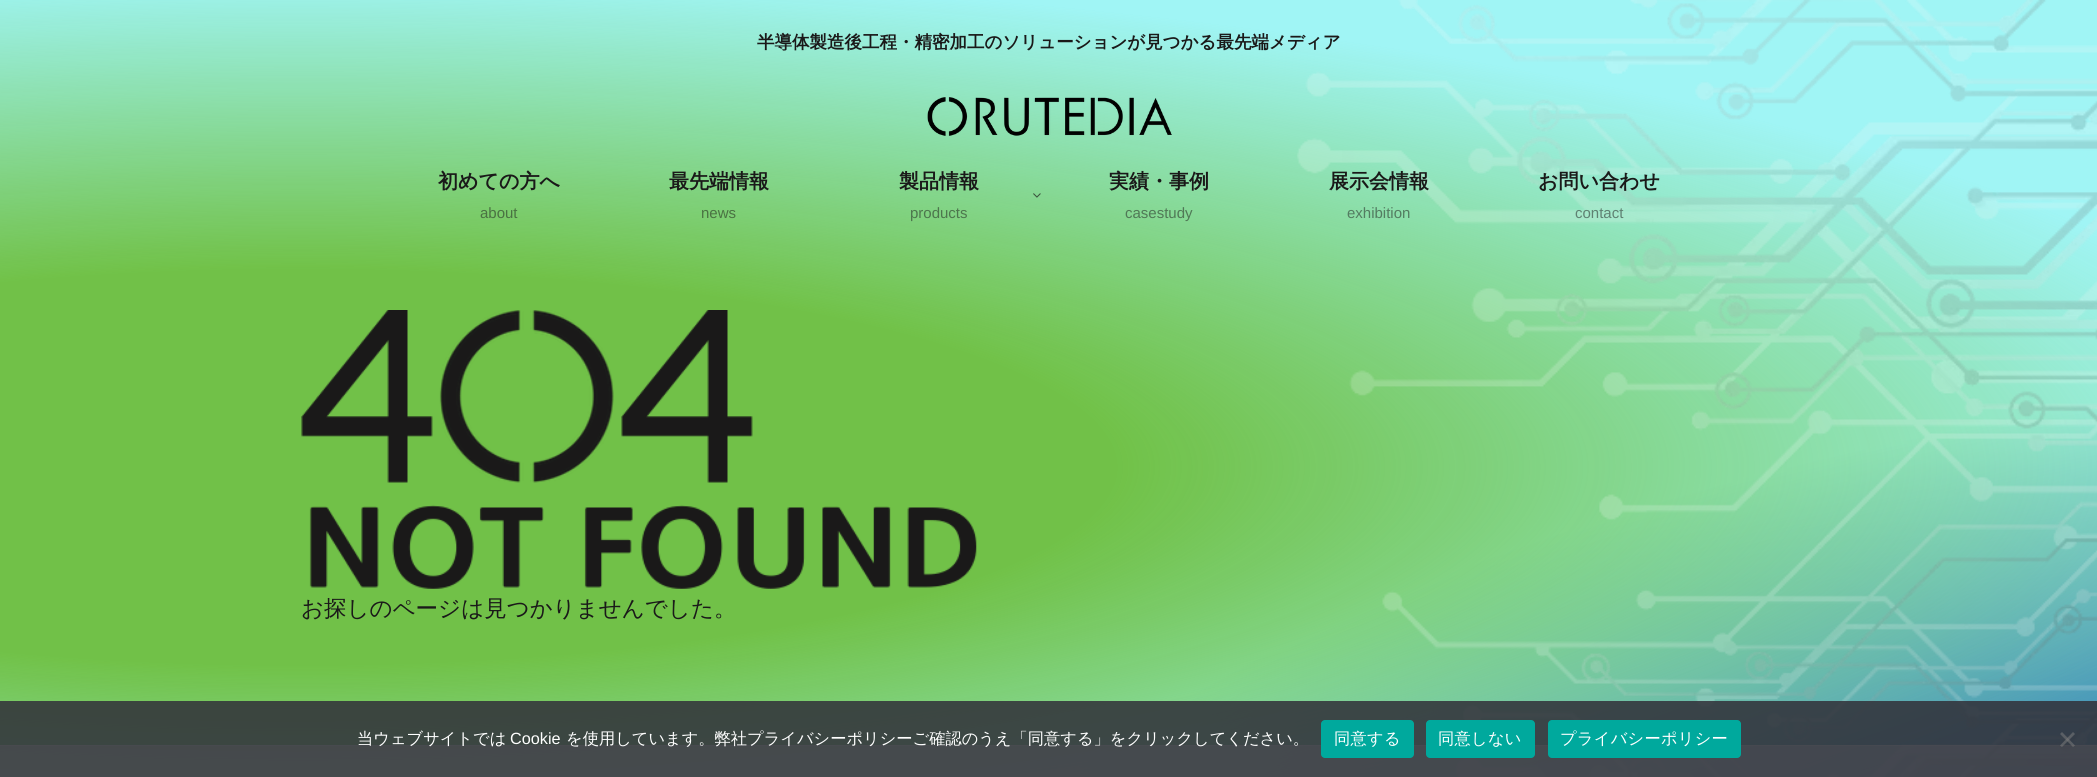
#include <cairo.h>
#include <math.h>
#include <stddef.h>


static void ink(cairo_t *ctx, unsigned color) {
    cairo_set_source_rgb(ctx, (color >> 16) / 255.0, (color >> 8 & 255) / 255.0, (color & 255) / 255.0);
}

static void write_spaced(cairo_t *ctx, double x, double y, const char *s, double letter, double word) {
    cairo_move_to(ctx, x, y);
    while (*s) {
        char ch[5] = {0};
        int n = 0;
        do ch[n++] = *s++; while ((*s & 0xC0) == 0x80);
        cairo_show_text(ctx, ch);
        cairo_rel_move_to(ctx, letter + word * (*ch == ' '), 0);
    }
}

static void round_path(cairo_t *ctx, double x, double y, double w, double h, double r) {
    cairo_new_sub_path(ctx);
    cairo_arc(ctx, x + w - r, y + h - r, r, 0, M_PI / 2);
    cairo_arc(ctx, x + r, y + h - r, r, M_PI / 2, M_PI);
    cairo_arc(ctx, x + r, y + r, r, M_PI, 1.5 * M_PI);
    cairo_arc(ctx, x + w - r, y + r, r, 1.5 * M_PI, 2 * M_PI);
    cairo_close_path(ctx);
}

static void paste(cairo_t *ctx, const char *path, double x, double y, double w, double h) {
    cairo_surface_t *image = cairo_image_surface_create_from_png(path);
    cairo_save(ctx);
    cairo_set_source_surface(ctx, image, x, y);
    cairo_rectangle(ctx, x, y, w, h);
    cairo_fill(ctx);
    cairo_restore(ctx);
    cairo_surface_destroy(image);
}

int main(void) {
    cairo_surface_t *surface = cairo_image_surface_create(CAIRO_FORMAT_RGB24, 2097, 777);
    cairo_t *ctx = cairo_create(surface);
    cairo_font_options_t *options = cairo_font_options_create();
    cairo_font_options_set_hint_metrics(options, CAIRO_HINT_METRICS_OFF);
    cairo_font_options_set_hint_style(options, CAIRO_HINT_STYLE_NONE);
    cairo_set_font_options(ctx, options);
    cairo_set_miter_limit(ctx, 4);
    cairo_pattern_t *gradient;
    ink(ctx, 0xFFFFFF);
    cairo_paint(ctx);
    gradient = cairo_pattern_create_radial(0, 0, 0, 0, 0, 1);
    cairo_pattern_set_matrix(gradient, &(cairo_matrix_t){1.0 / 4005, 0, 0, 1.0 / 1649, -1.0 * 2832 / 4005, -1.0 * 1166 / 1649});
    cairo_pattern_add_color_stop_rgba(gradient, 0.3, 0.212, 0.518, 0.675, 1);
    cairo_pattern_add_color_stop_rgba(gradient, 0.5, 0.627, 0.961, 0.961, 1);
    cairo_set_source(ctx, gradient);
    cairo_pattern_destroy(gradient);
    cairo_rectangle(ctx, 0, 0, 2097, 777);
    cairo_fill(ctx);
    gradient = cairo_pattern_create_radial(0, 0, 0, 0, 0, 1);
    cairo_pattern_set_matrix(gradient, &(cairo_matrix_t){1.0 / 4005, 0, 0, 1.0 / 990, -1.0 * 315 / 4005, -1.0 * 467 / 990});
    cairo_pattern_add_color_stop_rgba(gradient, 0.2, 0.424, 0.737, 0.208, 0.9);
    cairo_pattern_add_color_stop_rgba(gradient, 0.5, 0.424, 0.737, 0.208, 0);
    cairo_set_source(ctx, gradient);
    cairo_pattern_destroy(gradient);
    cairo_rectangle(ctx, 0, 0, 2097, 777);
    cairo_fill(ctx);
    paste(ctx, "media/3.png", 1297, 0, 800, 777);
    cairo_select_font_face(ctx, "WenQuanYi Zen Hei", CAIRO_FONT_SLANT_NORMAL, CAIRO_FONT_WEIGHT_BOLD);
    cairo_set_font_size(ctx, 17.5);
    ink(ctx, 0x1A1919);
    cairo_move_to(ctx, 757, 48);
    cairo_show_text(ctx, "半導体製造後工程・精密加工のソリューションが見つかる最先端メディア");
    paste(ctx, "media/1.png", 927, 97, 245, 39);
    cairo_set_font_size(ctx, 20);
    cairo_move_to(ctx, 438, 188);
    cairo_show_text(ctx, "初めての方へ");
    cairo_select_font_face(ctx, "Liberation Sans", CAIRO_FONT_SLANT_NORMAL, CAIRO_FONT_WEIGHT_NORMAL);
    cairo_set_font_size(ctx, 15);
    ink(ctx, 0x4A7242);
    cairo_move_to(ctx, 480, 218);
    cairo_show_text(ctx, "about");
    cairo_select_font_face(ctx, "WenQuanYi Zen Hei", CAIRO_FONT_SLANT_NORMAL, CAIRO_FONT_WEIGHT_BOLD);
    cairo_set_font_size(ctx, 20);
    ink(ctx, 0x1A1919);
    cairo_move_to(ctx, 669, 188);
    cairo_show_text(ctx, "最先端情報");
    cairo_select_font_face(ctx, "Liberation Sans", CAIRO_FONT_SLANT_NORMAL, CAIRO_FONT_WEIGHT_NORMAL);
    cairo_set_font_size(ctx, 15);
    ink(ctx, 0x4A7242);
    cairo_move_to(ctx, 701, 218);
    cairo_show_text(ctx, "news");
    cairo_select_font_face(ctx, "WenQuanYi Zen Hei", CAIRO_FONT_SLANT_NORMAL, CAIRO_FONT_WEIGHT_BOLD);
    cairo_set_font_size(ctx, 20);
    ink(ctx, 0x1A1919);
    cairo_move_to(ctx, 899, 188);
    cairo_show_text(ctx, "製品情報");
    cairo_select_font_face(ctx, "Liberation Sans", CAIRO_FONT_SLANT_NORMAL, CAIRO_FONT_WEIGHT_NORMAL);
    cairo_set_font_size(ctx, 15);
    ink(ctx, 0x4D764D);
    cairo_move_to(ctx, 910, 218);
    cairo_show_text(ctx, "products");
    paste(ctx, "media/2.png", 1033, 193, 8, 5);
    cairo_select_font_face(ctx, "WenQuanYi Zen Hei", CAIRO_FONT_SLANT_NORMAL, CAIRO_FONT_WEIGHT_BOLD);
    cairo_set_font_size(ctx, 20);
    ink(ctx, 0x1A1919);
    cairo_move_to(ctx, 1109, 188);
    cairo_show_text(ctx, "実績・事例");
    cairo_select_font_face(ctx, "Liberation Sans", CAIRO_FONT_SLANT_NORMAL, CAIRO_FONT_WEIGHT_NORMAL);
    cairo_set_font_size(ctx, 15);
    ink(ctx, 0x507856);
    cairo_move_to(ctx, 1125, 218);
    cairo_show_text(ctx, "casestudy");
    cairo_select_font_face(ctx, "WenQuanYi Zen Hei", CAIRO_FONT_SLANT_NORMAL, CAIRO_FONT_WEIGHT_BOLD);
    cairo_set_font_size(ctx, 20);
    ink(ctx, 0x1A1919);
    cairo_move_to(ctx, 1329, 188);
    cairo_show_text(ctx, "展示会情報");
    cairo_select_font_face(ctx, "Liberation Sans", CAIRO_FONT_SLANT_NORMAL, CAIRO_FONT_WEIGHT_NORMAL);
    cairo_set_font_size(ctx, 15);
    ink(ctx, 0x537C61);
    cairo_move_to(ctx, 1347, 218);
    cairo_show_text(ctx, "exhibition");
    cairo_select_font_face(ctx, "WenQuanYi Zen Hei", CAIRO_FONT_SLANT_NORMAL, CAIRO_FONT_WEIGHT_BOLD);
    cairo_set_font_size(ctx, 20);
    ink(ctx, 0x1A1919);
    cairo_move_to(ctx, 1538, 188);
    cairo_show_text(ctx, "お問い合わせ");
    cairo_select_font_face(ctx, "Liberation Sans", CAIRO_FONT_SLANT_NORMAL, CAIRO_FONT_WEIGHT_NORMAL);
    cairo_set_font_size(ctx, 15);
    ink(ctx, 0x5F8172);
    cairo_move_to(ctx, 1575, 218);
    cairo_show_text(ctx, "contact");
    paste(ctx, "media/4.png", 301, 310, 676, 279);
    cairo_select_font_face(ctx, "WenQuanYi Zen Hei Medium", CAIRO_FONT_SLANT_NORMAL, CAIRO_FONT_WEIGHT_NORMAL);
    cairo_set_font_size(ctx, 22.5);
    ink(ctx, 0x1A1919);
    cairo_move_to(ctx, 301, 616);
    cairo_show_text(ctx, "お探しのページは見つかりませんでした。");
    cairo_set_source_rgba(ctx, 1, 1, 1, 0.57);
    cairo_rectangle(ctx, 0, 745, 2097, 32);
    cairo_fill(ctx);
    cairo_set_source_rgba(ctx, 1, 1, 1, 0.38);
    cairo_rectangle(ctx, 0, 745, 2097, 1);
    cairo_fill(ctx);
    cairo_set_source_rgba(ctx, 0.196, 0.196, 0.227, 0.87);
    cairo_rectangle(ctx, 0, 701, 2097, 76);
    cairo_fill(ctx);
    cairo_set_font_size(ctx, 16.25);
    ink(ctx, 0xFFFFFF);
    cairo_move_to(ctx, 357, 744);
    cairo_show_text(ctx, "当ウェブサイトでは");
    cairo_select_font_face(ctx, "Liberation Sans", CAIRO_FONT_SLANT_NORMAL, CAIRO_FONT_WEIGHT_NORMAL);
    cairo_move_to(ctx, 510, 744);
    cairo_show_text(ctx, "Cookie");
    cairo_select_font_face(ctx, "WenQuanYi Zen Hei Medium", CAIRO_FONT_SLANT_NORMAL, CAIRO_FONT_WEIGHT_NORMAL);
    cairo_move_to(ctx, 566, 744);
    cairo_show_text(ctx, "を使用しています。弊社プライバシーポリシーご確認のうえ「同意する」をクリックしてください。");
    ink(ctx, 0x00A99D);
    round_path(ctx, 1321, 720, 93, 38, 4);
    cairo_fill(ctx);
    ink(ctx, 0xFFFFFF);
    write_spaced(ctx, 1334, 744, "同意する", 0.25, 0);
    ink(ctx, 0x00A99D);
    round_path(ctx, 1426, 720, 109, 38, 4);
    cairo_fill(ctx);
    ink(ctx, 0xFFFFFF);
    write_spaced(ctx, 1438, 744, "同意しない", 0.25, 0);
    ink(ctx, 0x00A99D);
    round_path(ctx, 1548, 720, 193, 38, 4);
    cairo_fill(ctx);
    ink(ctx, 0xFFFFFF);
    write_spaced(ctx, 1560, 744, "プライバシーポリシー", 0.25, 0);
    cairo_set_source_rgba(ctx, 0.502, 0.502, 0.502, 0.5);
    cairo_new_path(ctx);
    cairo_move_to(ctx, 2073, 732);
    cairo_line_to(ctx, 2075, 734);
    cairo_line_to(ctx, 2062, 747);
    cairo_line_to(ctx, 2060, 745.5);
    cairo_close_path(ctx);
    cairo_fill(ctx);
    cairo_new_path(ctx);
    cairo_move_to(ctx, 2060, 734);
    cairo_line_to(ctx, 2062, 732);
    cairo_line_to(ctx, 2075, 745.5);
    cairo_line_to(ctx, 2073, 747);
    cairo_close_path(ctx);
    cairo_fill(ctx);
    cairo_surface_write_to_png(surface, "image.png");
    cairo_font_options_destroy(options);
    cairo_destroy(ctx);
    cairo_surface_destroy(surface);
    return 0;
}
